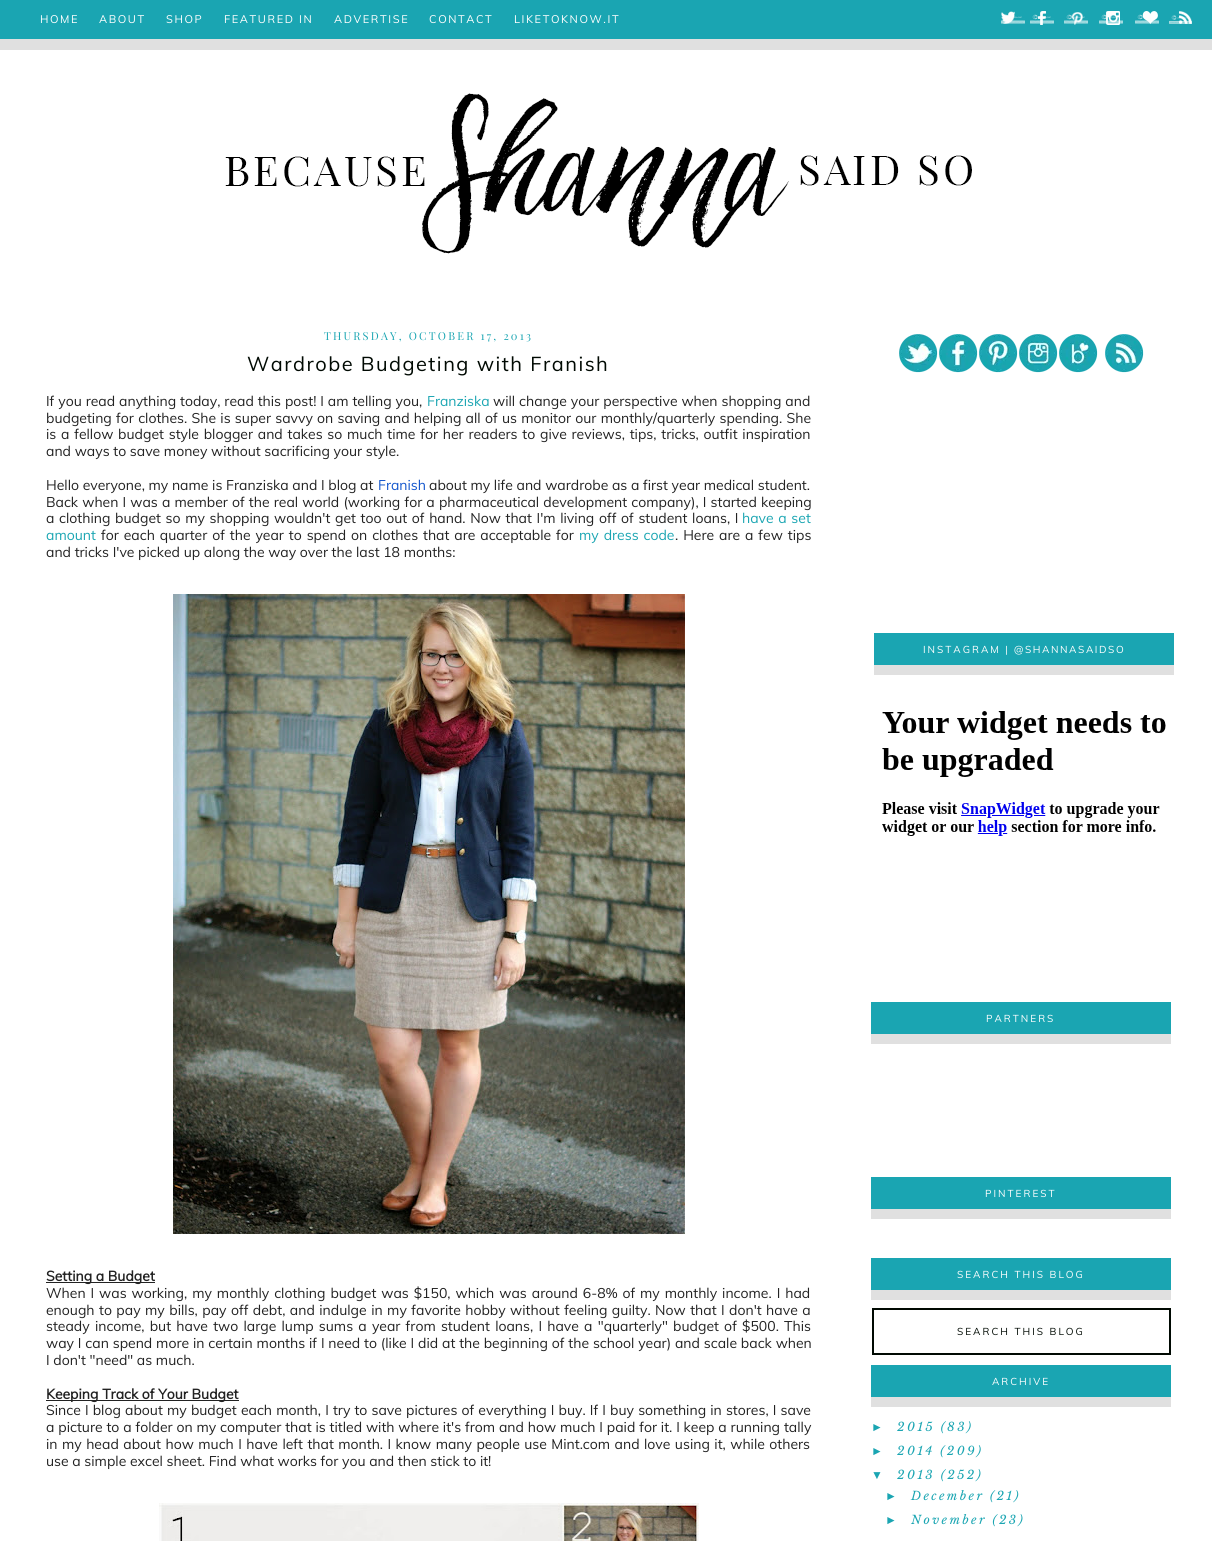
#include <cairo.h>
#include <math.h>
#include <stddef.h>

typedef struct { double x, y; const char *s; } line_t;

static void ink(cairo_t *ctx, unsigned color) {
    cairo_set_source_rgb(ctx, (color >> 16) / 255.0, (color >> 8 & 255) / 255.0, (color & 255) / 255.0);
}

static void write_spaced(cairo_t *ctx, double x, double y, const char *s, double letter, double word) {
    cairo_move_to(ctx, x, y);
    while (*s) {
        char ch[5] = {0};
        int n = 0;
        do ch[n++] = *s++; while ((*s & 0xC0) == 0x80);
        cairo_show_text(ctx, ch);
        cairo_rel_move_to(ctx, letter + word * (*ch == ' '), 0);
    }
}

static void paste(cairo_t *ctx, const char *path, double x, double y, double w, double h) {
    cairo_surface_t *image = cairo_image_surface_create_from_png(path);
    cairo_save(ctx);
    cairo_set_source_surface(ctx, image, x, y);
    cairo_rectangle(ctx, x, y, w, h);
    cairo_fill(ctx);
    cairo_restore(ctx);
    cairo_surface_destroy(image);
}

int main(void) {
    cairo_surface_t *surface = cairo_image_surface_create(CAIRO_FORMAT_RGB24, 1212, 1541);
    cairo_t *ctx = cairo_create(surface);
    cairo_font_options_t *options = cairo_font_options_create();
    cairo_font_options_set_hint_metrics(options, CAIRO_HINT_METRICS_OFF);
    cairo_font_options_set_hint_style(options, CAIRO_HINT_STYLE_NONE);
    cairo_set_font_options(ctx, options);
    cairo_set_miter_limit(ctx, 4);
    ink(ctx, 0xFFFFFF);
    cairo_paint(ctx);
    ink(ctx, 0x1AA5B2);
    cairo_rectangle(ctx, 0, 0, 1212, 39);
    cairo_fill(ctx);
    ink(ctx, 0xE0E0E0);
    cairo_rectangle(ctx, 0, 39, 1212, 11);
    cairo_fill(ctx);
    cairo_select_font_face(ctx, "Muli", CAIRO_FONT_SLANT_NORMAL, CAIRO_FONT_WEIGHT_NORMAL);
    cairo_set_font_size(ctx, 11);
    ink(ctx, 0xFFFFFF);
    {
        static const line_t items[] = {
            {40, 23, "HOME"},
            {99, 23, "ABOUT"},
            {166, 23, "SHOP"},
            {224, 23, "FEATURED IN"},
            {334, 23, "ADVERTISE"},
            {429, 23, "CONTACT"},
            {514, 23, "LIKETOKNOW.IT"},
        };
        for (size_t i = 0; i < sizeof items / sizeof *items; i++) {
            write_spaced(ctx, items[i].x, items[i].y, items[i].s, 1.6, 0);
        }
    }
    paste(ctx, "media/1.png", 1001, 11, 24, 13);
    paste(ctx, "media/2.png", 1030, 11, 24, 14);
    paste(ctx, "media/3.png", 1064, 12, 24, 13);
    paste(ctx, "media/4.png", 1099, 11, 24, 14);
    paste(ctx, "media/5.png", 1135, 11, 24, 13);
    paste(ctx, "media/6.png", 1169, 11, 23, 13);
    paste(ctx, "media/7.png", 94, 50, 1024, 204);
    cairo_select_font_face(ctx, "Playfair Display", CAIRO_FONT_SLANT_NORMAL, CAIRO_FONT_WEIGHT_NORMAL);
    ink(ctx, 0x1AA5B2);
    write_spaced(ctx, 324, 340, "THURSDAY, OCTOBER 17, 2013", 2.2, 0);
    cairo_select_font_face(ctx, "Muli", CAIRO_FONT_SLANT_NORMAL, CAIRO_FONT_WEIGHT_NORMAL);
    cairo_set_font_size(ctx, 20);
    ink(ctx, 0x000902);
    write_spaced(ctx, 247, 371, "Wardrobe Budgeting with Franish", 1.5, 0);
    cairo_set_font_size(ctx, 14);
    ink(ctx, 0x222222);
    write_spaced(ctx, 46, 406, "If you read anything today, read this post! I am telling you,", 0, 0.25);
    ink(ctx, 0x1AA5B2);
    cairo_move_to(ctx, 427, 406);
    cairo_show_text(ctx, "Franziska");
    ink(ctx, 0x222222);
    write_spaced(ctx, 493, 406, "will change your perspective when shopping and", 0, 0.25);
    write_spaced(ctx, 46, 423, "budgeting for clothes. She is super savvy on saving and helping all of us monitor our monthly/quarterly spending. She", 0, 0.6);
    write_spaced(ctx, 46, 439, "is a fellow budget style blogger and takes so much time for her readers to give reviews, tips, tricks, outfit inspiration", 0, 1.1);
    cairo_move_to(ctx, 46, 456);
    cairo_show_text(ctx, "and ways to save money without sacrificing your style.");
    cairo_move_to(ctx, 46, 490);
    cairo_show_text(ctx, "Hello everyone, my name is Franziska and I blog at");
    ink(ctx, 0x1155CC);
    cairo_move_to(ctx, 378, 490);
    cairo_show_text(ctx, "Franish");
    ink(ctx, 0x222222);
    cairo_move_to(ctx, 429, 490);
    cairo_show_text(ctx, "about my life and wardrobe as a first year medical student.");
    write_spaced(ctx, 46, 507, "Back when I was a member of the real world (working for a pharmaceutical development company), I started keeping", 0, 0.5);
    write_spaced(ctx, 46, 523, "a clothing budget so my shopping wouldn't get too out of hand. Now that I'm living off of student loans, I", 0, 1);
    ink(ctx, 0x1AA5B2);
    write_spaced(ctx, 742, 523, "have a set", 0, 1);
    cairo_move_to(ctx, 46, 540);
    cairo_show_text(ctx, "amount");
    ink(ctx, 0x222222);
    write_spaced(ctx, 101, 540, "for each quarter of the year to spend on clothes that are acceptable for", 0, 1.25);
    ink(ctx, 0x1AA5B2);
    write_spaced(ctx, 579, 540, "my dress code", 0, 1.25);
    ink(ctx, 0x222222);
    write_spaced(ctx, 675, 540, ". Here are a few tips", 0, 1.25);
    cairo_move_to(ctx, 46, 557);
    cairo_show_text(ctx, "and tricks I've picked up along the way over the last 18 months:");
    paste(ctx, "media/8.png", 173, 594, 512, 640);
    cairo_rectangle(ctx, 46, 1282, 109, 1);
    cairo_fill(ctx);
    cairo_select_font_face(ctx, "Muli", CAIRO_FONT_SLANT_NORMAL, CAIRO_FONT_WEIGHT_BOLD);
    cairo_move_to(ctx, 46, 1281);
    cairo_show_text(ctx, "Setting a Budget");
    cairo_select_font_face(ctx, "Muli", CAIRO_FONT_SLANT_NORMAL, CAIRO_FONT_WEIGHT_NORMAL);
    write_spaced(ctx, 46, 1298, "When I was working, my monthly clothing budget was $150, which was around 6-8% of my monthly income. I had", 0, 1.3);
    write_spaced(ctx, 46, 1315, "enough to pay my bills, pay off debt, and indulge in my favorite hobby without feeling guilty. Now that I don't have a", 0, 0.8);
    write_spaced(ctx, 46, 1331, "steady income, but have two large lump sums a year from student loans, I have a \"quarterly\" budget of $500. This", 0, 1.55);
    write_spaced(ctx, 46, 1348, "way I can spend more in certain months if I need to (like I did at the beginning of the school year) and scale back when", 0, 0.2);
    cairo_move_to(ctx, 46, 1365);
    cairo_show_text(ctx, "I don't \"need\" as much.");
    cairo_rectangle(ctx, 46, 1400, 193, 1);
    cairo_fill(ctx);
    cairo_select_font_face(ctx, "Muli", CAIRO_FONT_SLANT_NORMAL, CAIRO_FONT_WEIGHT_BOLD);
    cairo_move_to(ctx, 46, 1399);
    cairo_show_text(ctx, "Keeping Track of Your Budget");
    cairo_select_font_face(ctx, "Muli", CAIRO_FONT_SLANT_NORMAL, CAIRO_FONT_WEIGHT_NORMAL);
    write_spaced(ctx, 46, 1415, "Since I blog about my budget each month, I try to save pictures of everything I buy. If I buy something in stores, I save", 0, 0.5);
    write_spaced(ctx, 46, 1432, "a picture to a folder on my computer that is titled with where it's from and how much I paid for it. I keep a running tally", 0, 0.2);
    write_spaced(ctx, 46, 1449, "in my head about how much I have left that month. I know many people use Mint.com and love using it, while others", 0, 0.8);
    cairo_move_to(ctx, 46, 1466);
    cairo_show_text(ctx, "use a simple excel sheet. Find what works for you and then stick to it!");
    paste(ctx, "media/9.png", 159, 1503, 540, 38);
    paste(ctx, "media/10.png", 899, 334, 39, 39);
    paste(ctx, "media/11.png", 939, 334, 39, 39);
    paste(ctx, "media/12.png", 979, 334, 39, 39);
    paste(ctx, "media/13.png", 1019, 334, 39, 39);
    paste(ctx, "media/14.png", 1059, 334, 39, 39);
    paste(ctx, "media/15.png", 1105, 334, 39, 39);
    ink(ctx, 0x1AA5B2);
    cairo_rectangle(ctx, 874, 633, 300, 32);
    cairo_fill(ctx);
    ink(ctx, 0xE0E0E0);
    cairo_rectangle(ctx, 874, 665, 300, 10);
    cairo_fill(ctx);
    cairo_set_font_size(ctx, 10);
    ink(ctx, 0xFFFFFF);
    write_spaced(ctx, 923, 653, "INSTAGRAM |", 2, 0);
    write_spaced(ctx, 1014, 653, "@SHANNASAIDSO", 1.6, 0);
    paste(ctx, "media/16.png", 882, 711, 284, 125);
    ink(ctx, 0x1AA5B2);
    cairo_rectangle(ctx, 871, 1002, 300, 32);
    cairo_fill(ctx);
    ink(ctx, 0xE0E0E0);
    cairo_rectangle(ctx, 871, 1034, 300, 10);
    cairo_fill(ctx);
    ink(ctx, 0xFFFFFF);
    write_spaced(ctx, 986, 1022, "PARTNERS", 2, 0);
    ink(ctx, 0x1AA5B2);
    cairo_rectangle(ctx, 871, 1177, 300, 32);
    cairo_fill(ctx);
    ink(ctx, 0xE0E0E0);
    cairo_rectangle(ctx, 871, 1209, 300, 10);
    cairo_fill(ctx);
    ink(ctx, 0xFFFFFF);
    write_spaced(ctx, 985, 1197, "PINTEREST", 2, 0);
    ink(ctx, 0x1AA5B2);
    cairo_rectangle(ctx, 871, 1258, 300, 32);
    cairo_fill(ctx);
    ink(ctx, 0xE0E0E0);
    cairo_rectangle(ctx, 871, 1290, 300, 10);
    cairo_fill(ctx);
    ink(ctx, 0xFFFFFF);
    write_spaced(ctx, 957, 1278, "SEARCH THIS BLOG", 2, 0);
    cairo_rectangle(ctx, 873, 1309, 297, 45);
    ink(ctx, 0x000902);
    cairo_stroke(ctx);
    write_spaced(ctx, 957, 1335, "SEARCH THIS BLOG", 2, 0);
    ink(ctx, 0x1AA5B2);
    cairo_rectangle(ctx, 871, 1365, 300, 32);
    cairo_fill(ctx);
    ink(ctx, 0xE0E0E0);
    cairo_rectangle(ctx, 871, 1397, 300, 10);
    cairo_fill(ctx);
    ink(ctx, 0xFFFFFF);
    write_spaced(ctx, 992, 1385, "ARCHIVE", 2, 0);
    cairo_select_font_face(ctx, "Liberation Sans", CAIRO_FONT_SLANT_ITALIC, CAIRO_FONT_WEIGHT_NORMAL);
    cairo_set_font_size(ctx, 12);
    ink(ctx, 0x1AA5B2);
    write_spaced(ctx, 871, 1431, "►", 2.4, 0);
    cairo_select_font_face(ctx, "Libre Baskerville", CAIRO_FONT_SLANT_ITALIC, CAIRO_FONT_WEIGHT_NORMAL);
    write_spaced(ctx, 897, 1431, "2015 (83)", 2.4, 0);
    cairo_select_font_face(ctx, "Liberation Sans", CAIRO_FONT_SLANT_ITALIC, CAIRO_FONT_WEIGHT_NORMAL);
    write_spaced(ctx, 871, 1455, "►", 2.4, 0);
    cairo_select_font_face(ctx, "Libre Baskerville", CAIRO_FONT_SLANT_ITALIC, CAIRO_FONT_WEIGHT_NORMAL);
    write_spaced(ctx, 897, 1455, "2014 (209)", 2.4, 0);
    cairo_select_font_face(ctx, "Liberation Sans", CAIRO_FONT_SLANT_ITALIC, CAIRO_FONT_WEIGHT_NORMAL);
    write_spaced(ctx, 871, 1479, "▼", 2.4, 0);
    cairo_select_font_face(ctx, "Libre Baskerville", CAIRO_FONT_SLANT_ITALIC, CAIRO_FONT_WEIGHT_NORMAL);
    write_spaced(ctx, 897, 1479, "2013 (252)", 2.4, 0);
    cairo_select_font_face(ctx, "Liberation Sans", CAIRO_FONT_SLANT_ITALIC, CAIRO_FONT_WEIGHT_NORMAL);
    write_spaced(ctx, 885, 1500, "►", 2.4, 0);
    cairo_select_font_face(ctx, "Libre Baskerville", CAIRO_FONT_SLANT_ITALIC, CAIRO_FONT_WEIGHT_NORMAL);
    write_spaced(ctx, 911, 1500, "December (21)", 2.4, 0);
    cairo_select_font_face(ctx, "Liberation Sans", CAIRO_FONT_SLANT_ITALIC, CAIRO_FONT_WEIGHT_NORMAL);
    write_spaced(ctx, 885, 1524, "►", 2.4, 0);
    cairo_select_font_face(ctx, "Libre Baskerville", CAIRO_FONT_SLANT_ITALIC, CAIRO_FONT_WEIGHT_NORMAL);
    write_spaced(ctx, 911, 1524, "November (23)", 2.4, 0);
    cairo_surface_write_to_png(surface, "image.png");
    cairo_font_options_destroy(options);
    cairo_destroy(ctx);
    cairo_surface_destroy(surface);
    return 0;
}
